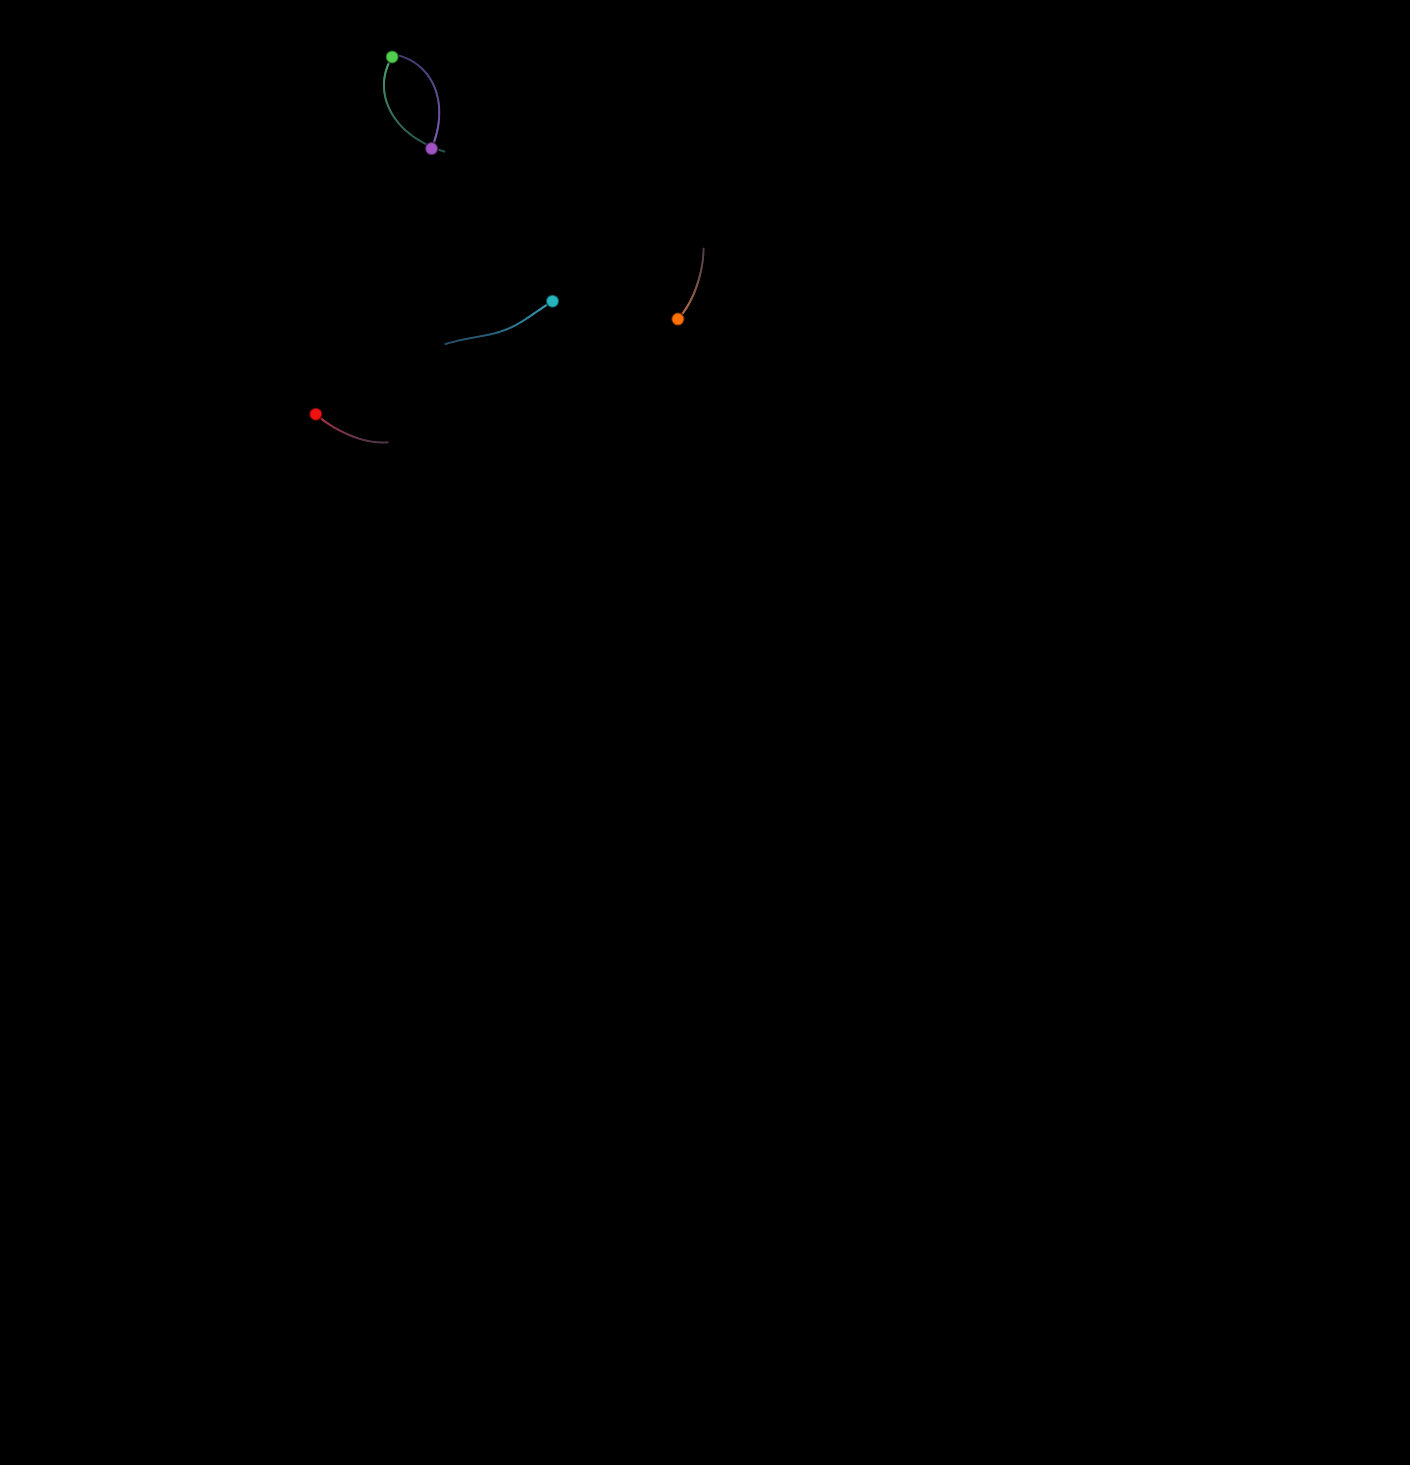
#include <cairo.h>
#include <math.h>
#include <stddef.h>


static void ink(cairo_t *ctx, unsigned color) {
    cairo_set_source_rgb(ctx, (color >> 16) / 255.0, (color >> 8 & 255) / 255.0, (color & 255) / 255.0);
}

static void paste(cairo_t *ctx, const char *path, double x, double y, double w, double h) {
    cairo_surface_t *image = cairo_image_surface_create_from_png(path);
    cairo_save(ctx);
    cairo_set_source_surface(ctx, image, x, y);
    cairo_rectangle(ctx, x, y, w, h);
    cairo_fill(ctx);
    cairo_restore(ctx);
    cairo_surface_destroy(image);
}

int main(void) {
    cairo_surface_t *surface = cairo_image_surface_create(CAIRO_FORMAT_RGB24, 1410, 1465);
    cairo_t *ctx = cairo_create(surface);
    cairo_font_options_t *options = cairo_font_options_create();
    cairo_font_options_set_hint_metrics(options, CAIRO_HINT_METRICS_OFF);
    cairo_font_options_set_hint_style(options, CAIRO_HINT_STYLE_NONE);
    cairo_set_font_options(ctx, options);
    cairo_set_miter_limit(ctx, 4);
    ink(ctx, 0x000000);
    cairo_paint(ctx);
    paste(ctx, "media/2.png", 314, 53, 391, 391);
    paste(ctx, "media/3.png", 320, 54, 385, 390);
    paste(ctx, "media/1.png", 309, 50, 376, 371);
    cairo_surface_write_to_png(surface, "image.png");
    cairo_font_options_destroy(options);
    cairo_destroy(ctx);
    cairo_surface_destroy(surface);
    return 0;
}
